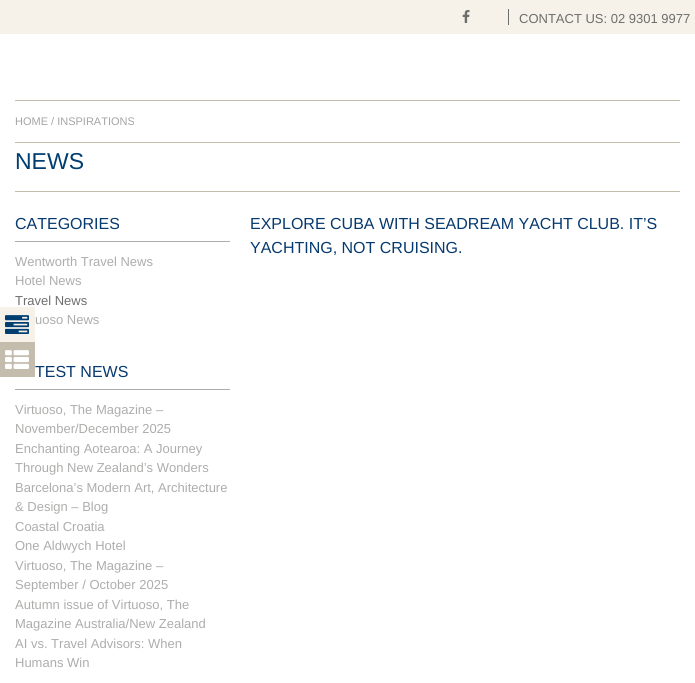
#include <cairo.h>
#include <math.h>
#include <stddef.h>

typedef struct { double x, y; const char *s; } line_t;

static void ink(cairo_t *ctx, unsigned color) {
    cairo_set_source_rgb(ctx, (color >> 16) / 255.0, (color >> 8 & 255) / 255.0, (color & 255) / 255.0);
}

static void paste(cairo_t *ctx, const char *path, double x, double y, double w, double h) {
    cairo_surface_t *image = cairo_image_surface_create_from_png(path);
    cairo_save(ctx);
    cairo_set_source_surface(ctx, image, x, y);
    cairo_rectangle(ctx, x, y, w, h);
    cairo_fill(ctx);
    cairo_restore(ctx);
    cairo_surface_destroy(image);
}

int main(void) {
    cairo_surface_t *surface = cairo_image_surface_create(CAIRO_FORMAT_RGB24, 695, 683);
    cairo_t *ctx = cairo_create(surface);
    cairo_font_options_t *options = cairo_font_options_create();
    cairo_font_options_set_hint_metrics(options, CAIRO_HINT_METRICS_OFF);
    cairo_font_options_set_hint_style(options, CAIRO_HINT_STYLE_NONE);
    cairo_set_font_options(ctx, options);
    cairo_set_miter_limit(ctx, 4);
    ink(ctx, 0xFFFFFF);
    cairo_paint(ctx);
    ink(ctx, 0xF6F2EA);
    cairo_rectangle(ctx, 0, 0, 695, 34);
    cairo_fill(ctx);
    ink(ctx, 0x6D6D6C);
    cairo_rectangle(ctx, 508, 9, 1, 16);
    cairo_fill(ctx);
    paste(ctx, "media/1.png", 462, 10, 8, 13);
    cairo_select_font_face(ctx, "Liberation Sans", CAIRO_FONT_SLANT_NORMAL, CAIRO_FONT_WEIGHT_NORMAL);
    cairo_set_font_size(ctx, 13);
    cairo_move_to(ctx, 519, 23);
    cairo_show_text(ctx, "CONTACT US: 02 9301 9977");
    ink(ctx, 0xF6F2EA);
    cairo_rectangle(ctx, 0, 307, 35, 35);
    cairo_fill(ctx);
    paste(ctx, "media/2.png", 5, 315, 24, 19);
    ink(ctx, 0xC4BCAD);
    cairo_rectangle(ctx, 15, 100, 665, 1);
    cairo_fill(ctx);
    cairo_rectangle(ctx, 15, 142, 665, 1);
    cairo_fill(ctx);
    cairo_set_font_size(ctx, 11);
    ink(ctx, 0xA3A4A3);
    cairo_move_to(ctx, 15, 125);
    cairo_show_text(ctx, "HOME / INSPIRATIONS");
    ink(ctx, 0xC4BCAD);
    cairo_rectangle(ctx, 15, 191, 665, 1);
    cairo_fill(ctx);
    cairo_set_font_size(ctx, 23);
    ink(ctx, 0x003D71);
    cairo_move_to(ctx, 15, 169);
    cairo_show_text(ctx, "NEWS");
    ink(ctx, 0xAEADAC);
    cairo_rectangle(ctx, 15, 241, 215, 1);
    cairo_fill(ctx);
    cairo_set_font_size(ctx, 16);
    ink(ctx, 0x06396E);
    cairo_move_to(ctx, 15, 229);
    cairo_show_text(ctx, "CATEGORIES");
    cairo_set_font_size(ctx, 13);
    ink(ctx, 0xAEADAC);
    cairo_move_to(ctx, 15, 266);
    cairo_show_text(ctx, "Wentworth Travel News");
    cairo_move_to(ctx, 15, 285);
    cairo_show_text(ctx, "Hotel News");
    ink(ctx, 0x6D6D6C);
    cairo_move_to(ctx, 15, 305);
    cairo_show_text(ctx, "Travel News");
    ink(ctx, 0xAEADAC);
    cairo_move_to(ctx, 35, 324);
    cairo_show_text(ctx, "uoso News");
    cairo_rectangle(ctx, 15, 389, 215, 1);
    cairo_fill(ctx);
    cairo_set_font_size(ctx, 16);
    ink(ctx, 0x06396E);
    cairo_move_to(ctx, 35, 377);
    cairo_show_text(ctx, "TEST NEWS");
    cairo_set_font_size(ctx, 13);
    ink(ctx, 0xAEADAC);
    {
        static const line_t items[] = {
            {15, 414, "Virtuoso, The Magazine –"},
            {15, 433, "November/December 2025"},
            {15, 453, "Enchanting Aotearoa: A Journey"},
            {15, 472, "Through New Zealand’s Wonders"},
            {15, 492, "Barcelona’s Modern Art, Architecture"},
            {15, 511, "& Design – Blog"},
            {15, 531, "Coastal Croatia"},
            {15, 550, "One Aldwych Hotel"},
            {15, 570, "Virtuoso, The Magazine –"},
            {15, 589, "September / October 2025"},
            {15, 609, "Autumn issue of Virtuoso, The"},
            {15, 628, "Magazine Australia/New Zealand"},
            {15, 648, "AI vs. Travel Advisors: When"},
            {15, 667, "Humans Win"},
        };
        for (size_t i = 0; i < sizeof items / sizeof *items; i++) {
            cairo_move_to(ctx, items[i].x, items[i].y);
            cairo_show_text(ctx, items[i].s);
        }
    }
    cairo_set_font_size(ctx, 16);
    ink(ctx, 0x06396E);
    cairo_move_to(ctx, 250, 229);
    cairo_show_text(ctx, "EXPLORE CUBA WITH SEADREAM YACHT CLUB. IT’S");
    cairo_move_to(ctx, 250, 253);
    cairo_show_text(ctx, "YACHTING, NOT CRUISING.");
    ink(ctx, 0xC4BCAD);
    cairo_rectangle(ctx, 0, 342, 35, 35);
    cairo_fill(ctx);
    paste(ctx, "media/3.png", 5, 350, 24, 19);
    cairo_surface_write_to_png(surface, "image.png");
    cairo_font_options_destroy(options);
    cairo_destroy(ctx);
    cairo_surface_destroy(surface);
    return 0;
}
